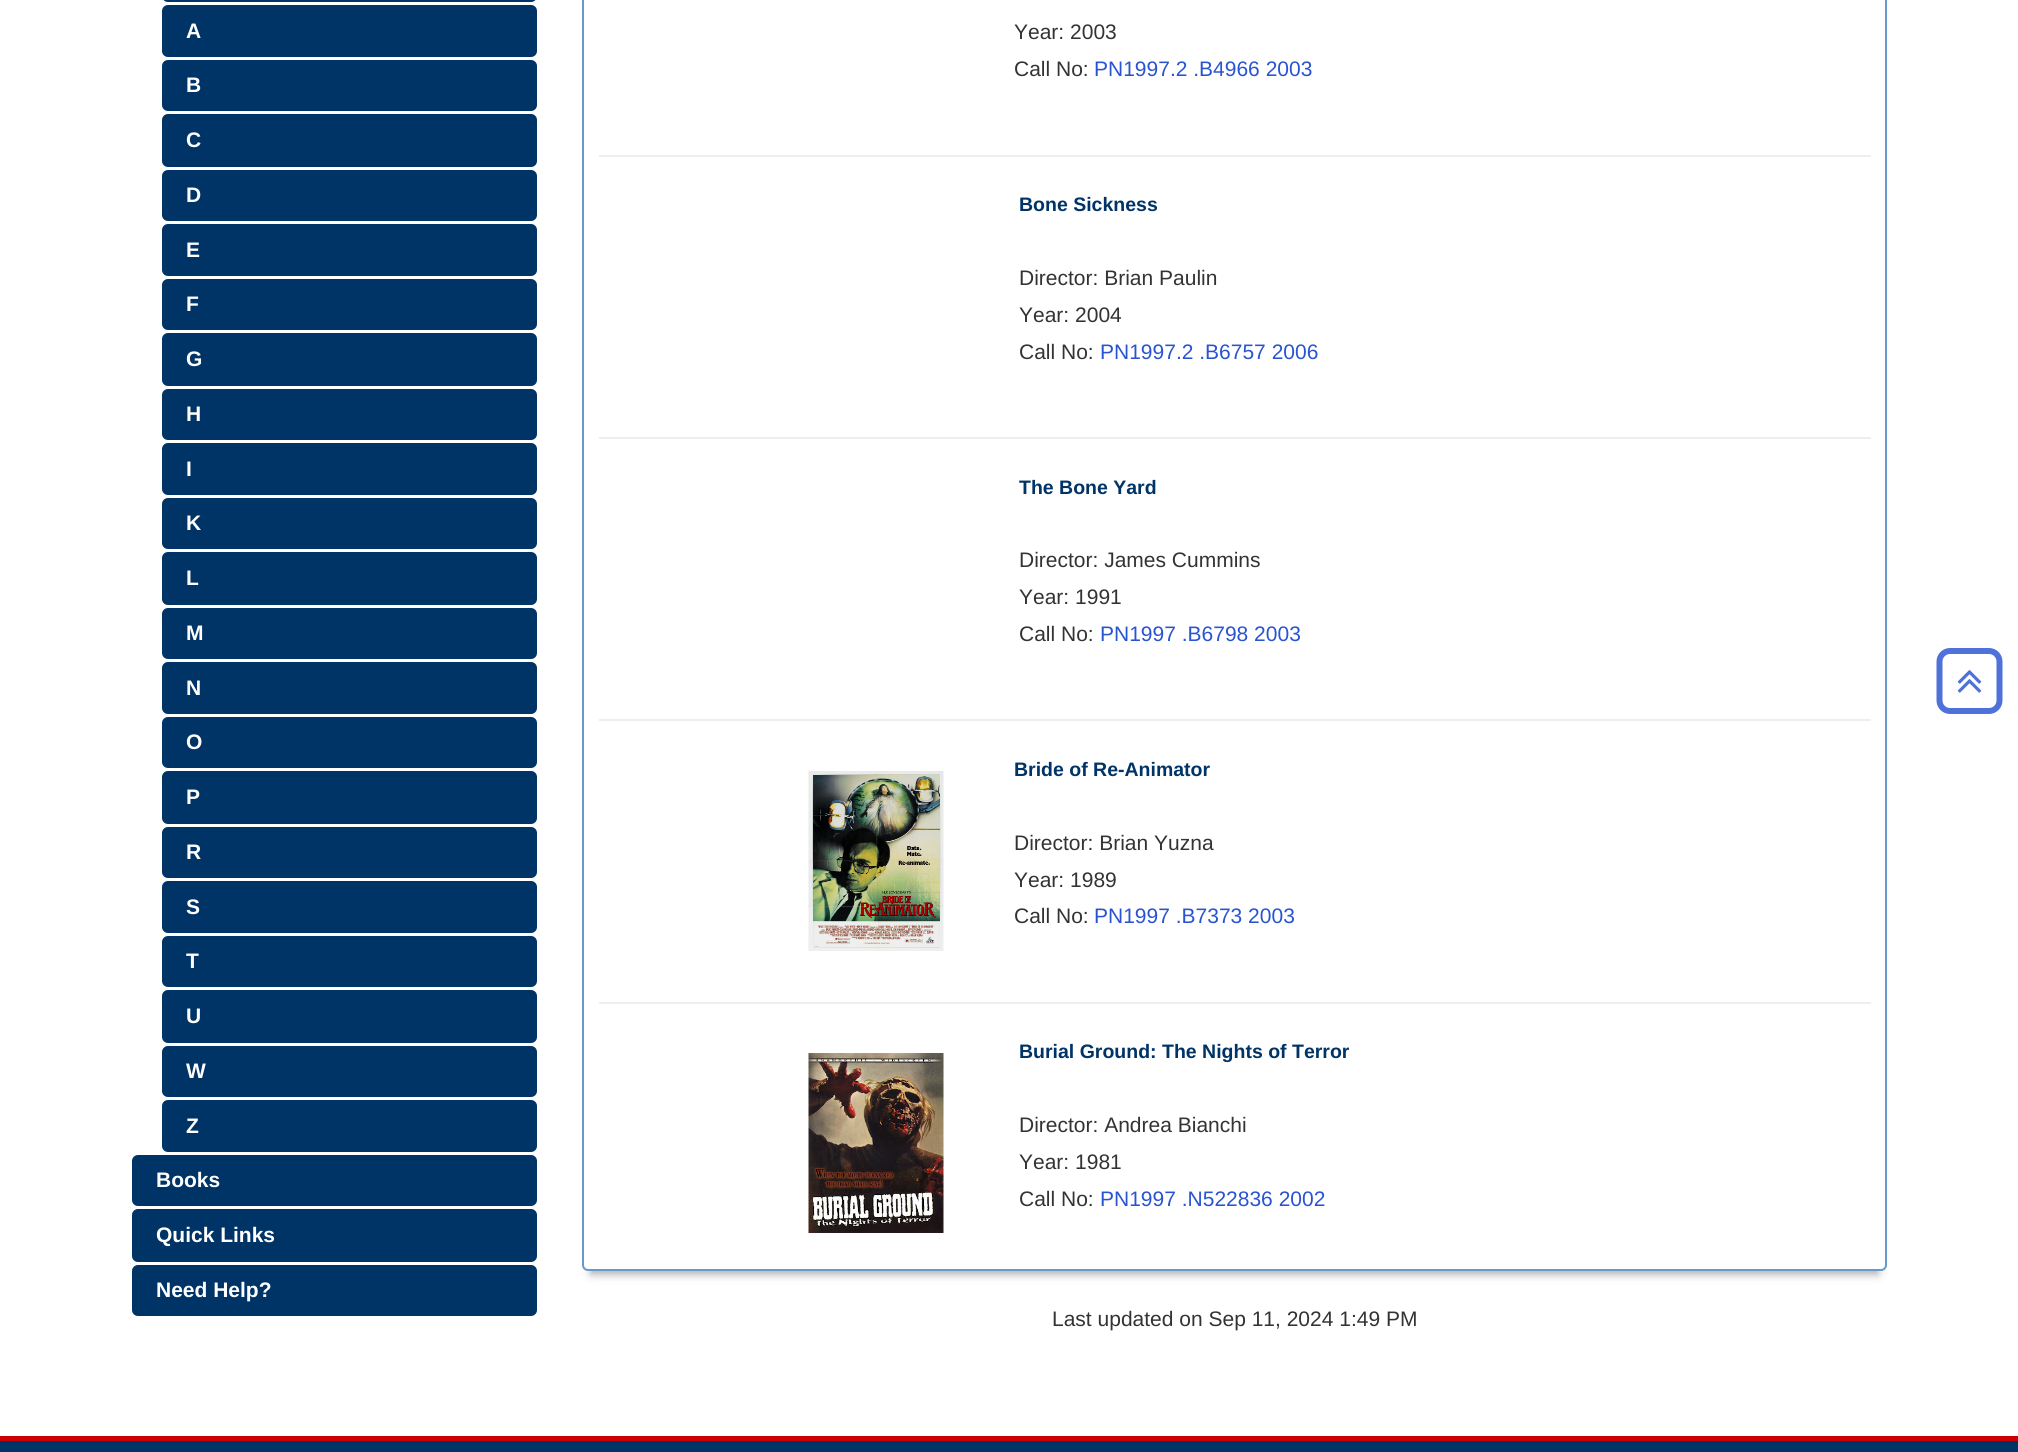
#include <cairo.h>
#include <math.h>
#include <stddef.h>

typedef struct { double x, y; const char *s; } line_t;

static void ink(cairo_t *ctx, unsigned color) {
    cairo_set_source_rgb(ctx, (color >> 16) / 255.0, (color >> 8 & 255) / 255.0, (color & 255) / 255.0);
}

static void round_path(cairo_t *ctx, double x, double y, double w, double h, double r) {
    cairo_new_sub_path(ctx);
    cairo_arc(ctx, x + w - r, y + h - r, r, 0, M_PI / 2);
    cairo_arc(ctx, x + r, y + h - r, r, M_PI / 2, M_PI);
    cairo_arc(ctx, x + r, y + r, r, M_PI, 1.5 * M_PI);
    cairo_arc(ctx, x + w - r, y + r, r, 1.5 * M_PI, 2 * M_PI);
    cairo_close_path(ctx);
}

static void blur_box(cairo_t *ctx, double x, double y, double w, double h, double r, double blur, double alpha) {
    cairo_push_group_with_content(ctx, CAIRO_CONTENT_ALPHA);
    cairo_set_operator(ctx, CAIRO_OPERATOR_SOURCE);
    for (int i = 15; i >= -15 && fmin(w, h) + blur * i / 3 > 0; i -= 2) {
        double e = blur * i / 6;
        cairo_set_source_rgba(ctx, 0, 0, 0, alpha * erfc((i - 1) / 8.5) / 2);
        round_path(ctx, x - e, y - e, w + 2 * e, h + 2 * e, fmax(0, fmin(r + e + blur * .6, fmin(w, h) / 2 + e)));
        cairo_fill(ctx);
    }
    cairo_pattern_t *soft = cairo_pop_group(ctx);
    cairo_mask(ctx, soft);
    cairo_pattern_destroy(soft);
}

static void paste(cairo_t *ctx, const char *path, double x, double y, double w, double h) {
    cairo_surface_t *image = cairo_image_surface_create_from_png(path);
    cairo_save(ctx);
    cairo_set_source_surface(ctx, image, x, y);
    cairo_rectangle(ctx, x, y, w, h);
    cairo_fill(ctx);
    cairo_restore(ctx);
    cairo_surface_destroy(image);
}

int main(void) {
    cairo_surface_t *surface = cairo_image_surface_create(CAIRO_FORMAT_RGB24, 2018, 1452);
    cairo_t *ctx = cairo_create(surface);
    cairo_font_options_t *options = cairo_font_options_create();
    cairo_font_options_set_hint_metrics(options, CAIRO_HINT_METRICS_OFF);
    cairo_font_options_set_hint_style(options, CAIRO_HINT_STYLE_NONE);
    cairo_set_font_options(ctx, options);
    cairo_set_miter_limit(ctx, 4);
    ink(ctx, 0xFFFFFF);
    cairo_paint(ctx);
    ink(ctx, 0x003366);
    round_path(ctx, 162, -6, 375, 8, 6);
    cairo_fill(ctx);
    round_path(ctx, 162, 5, 375, 52, 6);
    cairo_fill(ctx);
    cairo_select_font_face(ctx, "Liberation Sans", CAIRO_FONT_SLANT_NORMAL, CAIRO_FONT_WEIGHT_BOLD);
    cairo_set_font_size(ctx, 21);
    ink(ctx, 0xFFFFFF);
    cairo_move_to(ctx, 186, 38);
    cairo_show_text(ctx, "A");
    ink(ctx, 0x003366);
    round_path(ctx, 162, 60, 375, 51, 6);
    cairo_fill(ctx);
    ink(ctx, 0xFFFFFF);
    cairo_move_to(ctx, 186, 92);
    cairo_show_text(ctx, "B");
    ink(ctx, 0x003366);
    round_path(ctx, 162, 114, 375, 53, 6);
    cairo_fill(ctx);
    ink(ctx, 0xFFFFFF);
    cairo_move_to(ctx, 186, 147);
    cairo_show_text(ctx, "C");
    ink(ctx, 0x003366);
    round_path(ctx, 162, 170, 375, 51, 6);
    cairo_fill(ctx);
    ink(ctx, 0xFFFFFF);
    cairo_move_to(ctx, 186, 202);
    cairo_show_text(ctx, "D");
    ink(ctx, 0x003366);
    round_path(ctx, 162, 224, 375, 52, 6);
    cairo_fill(ctx);
    ink(ctx, 0xFFFFFF);
    cairo_move_to(ctx, 186, 257);
    cairo_show_text(ctx, "E");
    ink(ctx, 0x003366);
    round_path(ctx, 162, 279, 375, 51, 6);
    cairo_fill(ctx);
    ink(ctx, 0xFFFFFF);
    cairo_move_to(ctx, 186, 311);
    cairo_show_text(ctx, "F");
    ink(ctx, 0x003366);
    round_path(ctx, 162, 333, 375, 53, 6);
    cairo_fill(ctx);
    ink(ctx, 0xFFFFFF);
    cairo_move_to(ctx, 186, 366);
    cairo_show_text(ctx, "G");
    ink(ctx, 0x003366);
    round_path(ctx, 162, 389, 375, 51, 6);
    cairo_fill(ctx);
    ink(ctx, 0xFFFFFF);
    cairo_move_to(ctx, 186, 421);
    cairo_show_text(ctx, "H");
    ink(ctx, 0x003366);
    round_path(ctx, 162, 443, 375, 52, 6);
    cairo_fill(ctx);
    ink(ctx, 0xFFFFFF);
    cairo_move_to(ctx, 186, 476);
    cairo_show_text(ctx, "I");
    ink(ctx, 0x003366);
    round_path(ctx, 162, 498, 375, 51, 6);
    cairo_fill(ctx);
    ink(ctx, 0xFFFFFF);
    cairo_move_to(ctx, 186, 530);
    cairo_show_text(ctx, "K");
    ink(ctx, 0x003366);
    round_path(ctx, 162, 552, 375, 53, 6);
    cairo_fill(ctx);
    ink(ctx, 0xFFFFFF);
    cairo_move_to(ctx, 186, 585);
    cairo_show_text(ctx, "L");
    ink(ctx, 0x003366);
    round_path(ctx, 162, 608, 375, 51, 6);
    cairo_fill(ctx);
    ink(ctx, 0xFFFFFF);
    cairo_move_to(ctx, 186, 640);
    cairo_show_text(ctx, "M");
    ink(ctx, 0x003366);
    round_path(ctx, 162, 662, 375, 52, 6);
    cairo_fill(ctx);
    ink(ctx, 0xFFFFFF);
    cairo_move_to(ctx, 186, 695);
    cairo_show_text(ctx, "N");
    ink(ctx, 0x003366);
    round_path(ctx, 162, 717, 375, 51, 6);
    cairo_fill(ctx);
    ink(ctx, 0xFFFFFF);
    cairo_move_to(ctx, 186, 749);
    cairo_show_text(ctx, "O");
    ink(ctx, 0x003366);
    round_path(ctx, 162, 771, 375, 53, 6);
    cairo_fill(ctx);
    ink(ctx, 0xFFFFFF);
    cairo_move_to(ctx, 186, 804);
    cairo_show_text(ctx, "P");
    ink(ctx, 0x003366);
    round_path(ctx, 162, 827, 375, 51, 6);
    cairo_fill(ctx);
    ink(ctx, 0xFFFFFF);
    cairo_move_to(ctx, 186, 859);
    cairo_show_text(ctx, "R");
    ink(ctx, 0x003366);
    round_path(ctx, 162, 881, 375, 52, 6);
    cairo_fill(ctx);
    ink(ctx, 0xFFFFFF);
    cairo_move_to(ctx, 186, 914);
    cairo_show_text(ctx, "S");
    ink(ctx, 0x003366);
    round_path(ctx, 162, 936, 375, 51, 6);
    cairo_fill(ctx);
    ink(ctx, 0xFFFFFF);
    cairo_move_to(ctx, 186, 968);
    cairo_show_text(ctx, "T");
    ink(ctx, 0x003366);
    round_path(ctx, 162, 990, 375, 53, 6);
    cairo_fill(ctx);
    ink(ctx, 0xFFFFFF);
    cairo_move_to(ctx, 186, 1023);
    cairo_show_text(ctx, "U");
    ink(ctx, 0x003366);
    round_path(ctx, 162, 1046, 375, 51, 6);
    cairo_fill(ctx);
    ink(ctx, 0xFFFFFF);
    cairo_move_to(ctx, 186, 1078);
    cairo_show_text(ctx, "W");
    ink(ctx, 0x003366);
    round_path(ctx, 162, 1100, 375, 52, 6);
    cairo_fill(ctx);
    ink(ctx, 0xFFFFFF);
    cairo_move_to(ctx, 186, 1133);
    cairo_show_text(ctx, "Z");
    ink(ctx, 0x003366);
    round_path(ctx, 132, 1155, 405, 51, 6);
    cairo_fill(ctx);
    ink(ctx, 0xFFFFFF);
    cairo_move_to(ctx, 156, 1187);
    cairo_show_text(ctx, "Books");
    ink(ctx, 0x003366);
    round_path(ctx, 132, 1209, 405, 53, 6);
    cairo_fill(ctx);
    ink(ctx, 0xFFFFFF);
    cairo_move_to(ctx, 156, 1242);
    cairo_show_text(ctx, "Quick Links");
    ink(ctx, 0x003366);
    round_path(ctx, 132, 1265, 405, 51, 6);
    cairo_fill(ctx);
    ink(ctx, 0xFFFFFF);
    cairo_move_to(ctx, 156, 1297);
    cairo_show_text(ctx, "Need Help?");
    ink(ctx, 0xAAAAAA);
    blur_box(ctx, 591, -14, 1287, 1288, 0, 4.5, 1);
    ink(ctx, 0xFFFFFF);
    round_path(ctx, 583, -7, 1303, 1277, 5);
    cairo_fill_preserve(ctx);
    ink(ctx, 0x6699CC);
    cairo_stroke(ctx);
    cairo_select_font_face(ctx, "Liberation Sans", CAIRO_FONT_SLANT_NORMAL, CAIRO_FONT_WEIGHT_NORMAL);
    ink(ctx, 0x333333);
    cairo_move_to(ctx, 1014, 39);
    cairo_show_text(ctx, "Year: 2003");
    cairo_move_to(ctx, 1014, 76);
    cairo_show_text(ctx, "Call No:");
    ink(ctx, 0x2954D1);
    cairo_move_to(ctx, 1094, 76);
    cairo_show_text(ctx, "PN1997.2 .B4966 2003");
    ink(ctx, 0xEEEEEE);
    cairo_rectangle(ctx, 599, 155, 1272, 2);
    cairo_fill(ctx);
    cairo_select_font_face(ctx, "Liberation Sans", CAIRO_FONT_SLANT_NORMAL, CAIRO_FONT_WEIGHT_BOLD);
    cairo_set_font_size(ctx, 19.5);
    ink(ctx, 0x003366);
    cairo_move_to(ctx, 1019, 211);
    cairo_show_text(ctx, "Bone Sickness");
    cairo_select_font_face(ctx, "Liberation Sans", CAIRO_FONT_SLANT_NORMAL, CAIRO_FONT_WEIGHT_NORMAL);
    cairo_set_font_size(ctx, 21);
    ink(ctx, 0x333333);
    {
        static const line_t items[] = {
            {1019, 285, "Director: Brian Paulin"},
            {1019, 322, "Year: 2004"},
            {1019, 359, "Call No:"},
        };
        for (size_t i = 0; i < sizeof items / sizeof *items; i++) {
            cairo_move_to(ctx, items[i].x, items[i].y);
            cairo_show_text(ctx, items[i].s);
        }
    }
    ink(ctx, 0x2954D1);
    cairo_move_to(ctx, 1100, 359);
    cairo_show_text(ctx, "PN1997.2 .B6757 2006");
    ink(ctx, 0xEEEEEE);
    cairo_rectangle(ctx, 599, 437, 1272, 2);
    cairo_fill(ctx);
    cairo_select_font_face(ctx, "Liberation Sans", CAIRO_FONT_SLANT_NORMAL, CAIRO_FONT_WEIGHT_BOLD);
    cairo_set_font_size(ctx, 19.5);
    ink(ctx, 0x003366);
    cairo_move_to(ctx, 1019, 494);
    cairo_show_text(ctx, "The Bone Yard");
    cairo_select_font_face(ctx, "Liberation Sans", CAIRO_FONT_SLANT_NORMAL, CAIRO_FONT_WEIGHT_NORMAL);
    cairo_set_font_size(ctx, 21);
    ink(ctx, 0x333333);
    {
        static const line_t items[] = {
            {1019, 567, "Director: James Cummins"},
            {1019, 604, "Year: 1991"},
            {1019, 641, "Call No:"},
        };
        for (size_t i = 0; i < sizeof items / sizeof *items; i++) {
            cairo_move_to(ctx, items[i].x, items[i].y);
            cairo_show_text(ctx, items[i].s);
        }
    }
    ink(ctx, 0x2954D1);
    cairo_move_to(ctx, 1100, 641);
    cairo_show_text(ctx, "PN1997 .B6798 2003");
    ink(ctx, 0xEEEEEE);
    cairo_rectangle(ctx, 599, 719, 1272, 2);
    cairo_fill(ctx);
    paste(ctx, "media/1.png", 808, 771, 136, 180);
    cairo_select_font_face(ctx, "Liberation Sans", CAIRO_FONT_SLANT_NORMAL, CAIRO_FONT_WEIGHT_BOLD);
    cairo_set_font_size(ctx, 19.5);
    ink(ctx, 0x003366);
    cairo_move_to(ctx, 1014, 776);
    cairo_show_text(ctx, "Bride of Re-Animator");
    cairo_select_font_face(ctx, "Liberation Sans", CAIRO_FONT_SLANT_NORMAL, CAIRO_FONT_WEIGHT_NORMAL);
    cairo_set_font_size(ctx, 21);
    ink(ctx, 0x333333);
    {
        static const line_t items[] = {
            {1014, 850, "Director: Brian Yuzna"},
            {1014, 887, "Year: 1989"},
            {1014, 923, "Call No:"},
        };
        for (size_t i = 0; i < sizeof items / sizeof *items; i++) {
            cairo_move_to(ctx, items[i].x, items[i].y);
            cairo_show_text(ctx, items[i].s);
        }
    }
    ink(ctx, 0x2954D1);
    cairo_move_to(ctx, 1094, 923);
    cairo_show_text(ctx, "PN1997 .B7373 2003");
    ink(ctx, 0xEEEEEE);
    cairo_rectangle(ctx, 599, 1002, 1272, 2);
    cairo_fill(ctx);
    paste(ctx, "media/2.png", 808, 1053, 136, 180);
    cairo_select_font_face(ctx, "Liberation Sans", CAIRO_FONT_SLANT_NORMAL, CAIRO_FONT_WEIGHT_BOLD);
    cairo_set_font_size(ctx, 19.5);
    ink(ctx, 0x003366);
    cairo_move_to(ctx, 1019, 1058);
    cairo_show_text(ctx, "Burial Ground: The Nights of Terror");
    cairo_select_font_face(ctx, "Liberation Sans", CAIRO_FONT_SLANT_NORMAL, CAIRO_FONT_WEIGHT_NORMAL);
    cairo_set_font_size(ctx, 21);
    ink(ctx, 0x333333);
    {
        static const line_t items[] = {
            {1019, 1132, "Director: Andrea Bianchi"},
            {1019, 1169, "Year: 1981"},
            {1019, 1206, "Call No:"},
        };
        for (size_t i = 0; i < sizeof items / sizeof *items; i++) {
            cairo_move_to(ctx, items[i].x, items[i].y);
            cairo_show_text(ctx, items[i].s);
        }
    }
    ink(ctx, 0x2954D1);
    cairo_move_to(ctx, 1100, 1206);
    cairo_show_text(ctx, "PN1997 .N522836 2002");
    ink(ctx, 0x333333);
    cairo_move_to(ctx, 1052, 1326);
    cairo_show_text(ctx, "Last updated on Sep 11, 2024 1:49 PM");
    paste(ctx, "media/3.png", 1936, 648, 67, 66);
    paste(ctx, "media/4.png", 1957, 670, 25, 23);
    ink(ctx, 0x003366);
    cairo_rectangle(ctx, 0, 1441, 2018, 11);
    cairo_fill(ctx);
    ink(ctx, 0xCC0000);
    cairo_rectangle(ctx, 0, 1436, 2018, 5);
    cairo_fill(ctx);
    cairo_surface_write_to_png(surface, "image.png");
    cairo_font_options_destroy(options);
    cairo_destroy(ctx);
    cairo_surface_destroy(surface);
    return 0;
}
